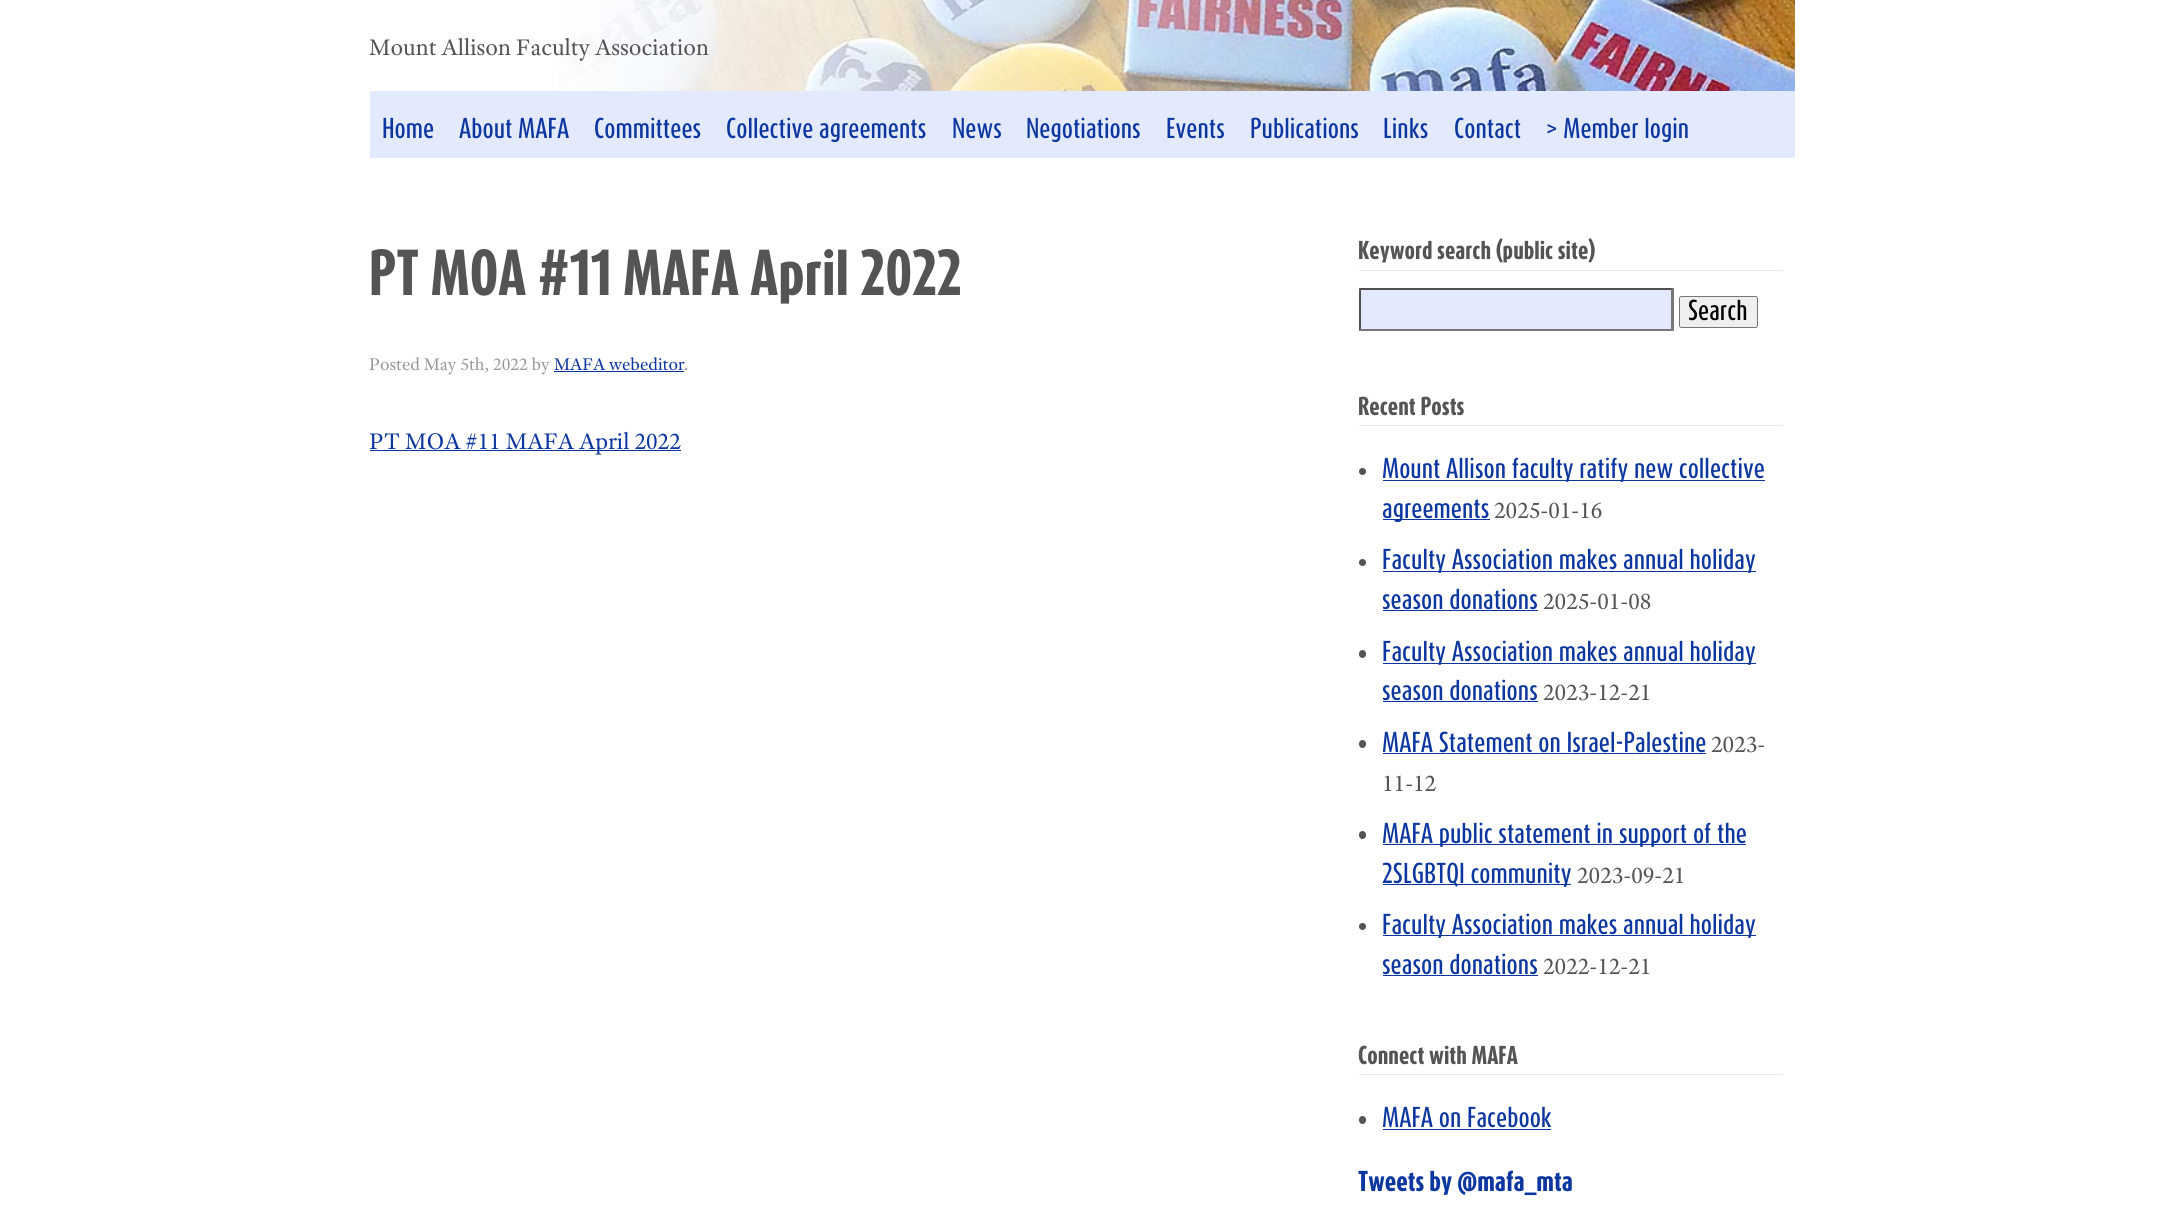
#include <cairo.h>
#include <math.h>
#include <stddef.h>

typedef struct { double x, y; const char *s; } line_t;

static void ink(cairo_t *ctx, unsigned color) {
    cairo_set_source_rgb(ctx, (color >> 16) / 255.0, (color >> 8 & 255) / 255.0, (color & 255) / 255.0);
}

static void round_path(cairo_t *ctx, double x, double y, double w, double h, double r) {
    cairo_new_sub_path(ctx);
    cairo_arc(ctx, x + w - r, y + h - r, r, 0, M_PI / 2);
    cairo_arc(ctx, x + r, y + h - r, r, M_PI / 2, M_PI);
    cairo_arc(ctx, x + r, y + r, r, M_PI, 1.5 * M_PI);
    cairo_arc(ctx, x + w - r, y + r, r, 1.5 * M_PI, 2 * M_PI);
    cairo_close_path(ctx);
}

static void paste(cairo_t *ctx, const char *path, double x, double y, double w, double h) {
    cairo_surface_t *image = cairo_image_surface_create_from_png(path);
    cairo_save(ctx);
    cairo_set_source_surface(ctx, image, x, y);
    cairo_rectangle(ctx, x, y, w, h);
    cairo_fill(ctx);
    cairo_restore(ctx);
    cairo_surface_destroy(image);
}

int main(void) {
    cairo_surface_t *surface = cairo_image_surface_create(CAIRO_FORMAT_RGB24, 2163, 1232);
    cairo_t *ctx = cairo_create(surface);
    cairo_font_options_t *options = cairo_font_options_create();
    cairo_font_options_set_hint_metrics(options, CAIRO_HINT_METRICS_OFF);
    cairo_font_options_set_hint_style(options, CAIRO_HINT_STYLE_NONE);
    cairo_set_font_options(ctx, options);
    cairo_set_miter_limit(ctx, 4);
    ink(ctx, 0xFFFFFF);
    cairo_paint(ctx);
    paste(ctx, "media/1.png", 559, 0, 1236, 91);
    cairo_select_font_face(ctx, "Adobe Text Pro", CAIRO_FONT_SLANT_NORMAL, CAIRO_FONT_WEIGHT_NORMAL);
    cairo_set_font_size(ctx, 24);
    ink(ctx, 0x545454);
    cairo_move_to(ctx, 369, 55);
    cairo_show_text(ctx, "Mount Allison Faculty Association");
    ink(ctx, 0xE3EAFD);
    cairo_rectangle(ctx, 370, 91, 1425, 67);
    cairo_fill(ctx);
    cairo_select_font_face(ctx, "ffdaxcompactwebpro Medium", CAIRO_FONT_SLANT_NORMAL, CAIRO_FONT_WEIGHT_NORMAL);
    ink(ctx, 0x0D37A0);
    {
        static const line_t items[] = {
            {382, 138, "Home"},
            {459, 138, "About MAFA"},
            {594, 138, "Committees"},
            {726, 138, "Collective agreements"},
            {952, 138, "News"},
            {1026, 138, "Negotiations"},
            {1166, 138, "Events"},
            {1250, 138, "Publications"},
            {1383, 138, "Links"},
            {1454, 138, "Contact"},
            {1546, 138, "> Member login"},
        };
        for (size_t i = 0; i < sizeof items / sizeof *items; i++) {
            cairo_move_to(ctx, items[i].x, items[i].y);
            cairo_show_text(ctx, items[i].s);
        }
    }
    cairo_select_font_face(ctx, "ffdaxcompactwebpro ExtraBold", CAIRO_FONT_SLANT_NORMAL, CAIRO_FONT_WEIGHT_NORMAL);
    cairo_set_font_size(ctx, 54);
    ink(ctx, 0x545454);
    cairo_move_to(ctx, 369, 295);
    cairo_show_text(ctx, "PT MOA #11 MAFA April 2022");
    cairo_select_font_face(ctx, "Adobe Text Pro", CAIRO_FONT_SLANT_NORMAL, CAIRO_FONT_WEIGHT_NORMAL);
    cairo_set_font_size(ctx, 18);
    ink(ctx, 0x999999);
    cairo_move_to(ctx, 369, 370);
    cairo_show_text(ctx, "Posted May 5th, 2022 by");
    ink(ctx, 0x0D37A0);
    cairo_move_to(ctx, 554, 370);
    cairo_show_text(ctx, "MAFA webeditor");
    cairo_rectangle(ctx, 554, 371, 130, 1);
    cairo_fill(ctx);
    ink(ctx, 0x999999);
    cairo_move_to(ctx, 684, 370);
    cairo_show_text(ctx, ".");
    ink(ctx, 0x0D37A0);
    cairo_rectangle(ctx, 370, 450, 311, 1);
    cairo_fill(ctx);
    cairo_set_font_size(ctx, 24);
    cairo_move_to(ctx, 369, 449);
    cairo_show_text(ctx, "PT MOA #11 MAFA April 2022");
    ink(ctx, 0xE3EAFD);
    cairo_rectangle(ctx, 1359, 270, 424, 1);
    cairo_fill(ctx);
    cairo_select_font_face(ctx, "ffdaxcompactwebpro ExtraBold", CAIRO_FONT_SLANT_NORMAL, CAIRO_FONT_WEIGHT_NORMAL);
    cairo_set_font_size(ctx, 21.6);
    ink(ctx, 0x545454);
    cairo_move_to(ctx, 1358, 259);
    cairo_show_text(ctx, "Keyword search (public site)");
    ink(ctx, 0xE3EAFD);
    cairo_rectangle(ctx, 1359, 288, 315, 43);
    cairo_fill(ctx);
    ink(ctx, 0x4F4F4F);
    cairo_new_path(ctx);
    cairo_move_to(ctx, 1359, 288);
    cairo_line_to(ctx, 1674, 288);
    cairo_line_to(ctx, 1671, 290);
    cairo_line_to(ctx, 1361, 290);
    cairo_close_path(ctx);
    cairo_fill(ctx);
    ink(ctx, 0x767676);
    cairo_new_path(ctx);
    cairo_move_to(ctx, 1674, 288);
    cairo_line_to(ctx, 1674, 331);
    cairo_line_to(ctx, 1671, 329);
    cairo_line_to(ctx, 1671, 290);
    cairo_close_path(ctx);
    cairo_fill(ctx);
    cairo_new_path(ctx);
    cairo_move_to(ctx, 1674, 331);
    cairo_line_to(ctx, 1359, 331);
    cairo_line_to(ctx, 1361, 329);
    cairo_line_to(ctx, 1671, 329);
    cairo_close_path(ctx);
    cairo_fill(ctx);
    ink(ctx, 0x4F4F4F);
    cairo_new_path(ctx);
    cairo_move_to(ctx, 1359, 331);
    cairo_line_to(ctx, 1359, 288);
    cairo_line_to(ctx, 1361, 290);
    cairo_line_to(ctx, 1361, 329);
    cairo_close_path(ctx);
    cairo_fill(ctx);
    ink(ctx, 0xEFEFEF);
    round_path(ctx, 1679.5, 296.5, 78, 31, 2);
    cairo_fill_preserve(ctx);
    ink(ctx, 0x767676);
    cairo_set_line_width(ctx, 1);
    cairo_stroke(ctx);
    cairo_select_font_face(ctx, "ffdaxcompactwebpro Medium", CAIRO_FONT_SLANT_NORMAL, CAIRO_FONT_WEIGHT_NORMAL);
    cairo_set_font_size(ctx, 24);
    ink(ctx, 0x000000);
    cairo_move_to(ctx, 1688, 320);
    cairo_show_text(ctx, "Search");
    ink(ctx, 0xE3EAFD);
    cairo_rectangle(ctx, 1359, 425, 424, 1);
    cairo_fill(ctx);
    cairo_select_font_face(ctx, "ffdaxcompactwebpro ExtraBold", CAIRO_FONT_SLANT_NORMAL, CAIRO_FONT_WEIGHT_NORMAL);
    cairo_set_font_size(ctx, 21.6);
    ink(ctx, 0x545454);
    cairo_move_to(ctx, 1358, 415);
    cairo_show_text(ctx, "Recent Posts");
    cairo_new_path(ctx);
    cairo_arc(ctx, 1362.5, 471.5, 3.5, 0, 2 * M_PI);
    cairo_fill(ctx);
    ink(ctx, 0x0D37A0);
    cairo_rectangle(ctx, 1383, 480, 382, 1);
    cairo_fill(ctx);
    cairo_select_font_face(ctx, "ffdaxcompactwebpro Medium", CAIRO_FONT_SLANT_NORMAL, CAIRO_FONT_WEIGHT_NORMAL);
    cairo_set_font_size(ctx, 24);
    cairo_move_to(ctx, 1382, 478);
    cairo_show_text(ctx, "Mount Allison faculty ratify new collective");
    cairo_rectangle(ctx, 1383, 519, 107, 1);
    cairo_fill(ctx);
    cairo_move_to(ctx, 1382, 518);
    cairo_show_text(ctx, "agreements");
    cairo_select_font_face(ctx, "Adobe Text Pro", CAIRO_FONT_SLANT_NORMAL, CAIRO_FONT_WEIGHT_NORMAL);
    ink(ctx, 0x545454);
    cairo_move_to(ctx, 1494, 518);
    cairo_show_text(ctx, "2025-01-16");
    cairo_new_path(ctx);
    cairo_arc(ctx, 1362.5, 562.5, 3.5, 0, 2 * M_PI);
    cairo_fill(ctx);
    ink(ctx, 0x0D37A0);
    cairo_rectangle(ctx, 1383, 571, 373, 1);
    cairo_fill(ctx);
    cairo_select_font_face(ctx, "ffdaxcompactwebpro Medium", CAIRO_FONT_SLANT_NORMAL, CAIRO_FONT_WEIGHT_NORMAL);
    cairo_move_to(ctx, 1382, 569);
    cairo_show_text(ctx, "Faculty Association makes annual holiday");
    cairo_move_to(ctx, 1382, 609);
    cairo_show_text(ctx, "season donations");
    cairo_rectangle(ctx, 1383, 610, 155, 1);
    cairo_fill(ctx);
    cairo_select_font_face(ctx, "Adobe Text Pro", CAIRO_FONT_SLANT_NORMAL, CAIRO_FONT_WEIGHT_NORMAL);
    ink(ctx, 0x545454);
    cairo_move_to(ctx, 1543, 609);
    cairo_show_text(ctx, "2025-01-08");
    round_path(ctx, 1359, 650, 7, 8, 3.5);
    cairo_fill(ctx);
    ink(ctx, 0x0D37A0);
    cairo_rectangle(ctx, 1383, 663, 373, 1);
    cairo_fill(ctx);
    cairo_select_font_face(ctx, "ffdaxcompactwebpro Medium", CAIRO_FONT_SLANT_NORMAL, CAIRO_FONT_WEIGHT_NORMAL);
    cairo_move_to(ctx, 1382, 661);
    cairo_show_text(ctx, "Faculty Association makes annual holiday");
    cairo_move_to(ctx, 1382, 700);
    cairo_show_text(ctx, "season donations");
    cairo_rectangle(ctx, 1383, 701, 155, 1);
    cairo_fill(ctx);
    cairo_select_font_face(ctx, "Adobe Text Pro", CAIRO_FONT_SLANT_NORMAL, CAIRO_FONT_WEIGHT_NORMAL);
    ink(ctx, 0x545454);
    cairo_move_to(ctx, 1543, 700);
    cairo_show_text(ctx, "2023-12-21");
    round_path(ctx, 1359, 740, 7, 8, 3.5);
    cairo_fill(ctx);
    cairo_select_font_face(ctx, "ffdaxcompactwebpro Medium", CAIRO_FONT_SLANT_NORMAL, CAIRO_FONT_WEIGHT_NORMAL);
    ink(ctx, 0x0D37A0);
    cairo_move_to(ctx, 1382, 752);
    cairo_show_text(ctx, "MAFA Statement on Israel-Palestine");
    cairo_rectangle(ctx, 1383, 753, 323, 1);
    cairo_fill(ctx);
    cairo_select_font_face(ctx, "Adobe Text Pro", CAIRO_FONT_SLANT_NORMAL, CAIRO_FONT_WEIGHT_NORMAL);
    ink(ctx, 0x545454);
    cairo_move_to(ctx, 1711, 752);
    cairo_show_text(ctx, "2023-");
    cairo_move_to(ctx, 1382, 791);
    cairo_show_text(ctx, "11-12");
    round_path(ctx, 1359, 831, 7, 8, 3.5);
    cairo_fill(ctx);
    ink(ctx, 0x0D37A0);
    cairo_rectangle(ctx, 1383, 844, 363, 1);
    cairo_fill(ctx);
    cairo_select_font_face(ctx, "ffdaxcompactwebpro Medium", CAIRO_FONT_SLANT_NORMAL, CAIRO_FONT_WEIGHT_NORMAL);
    cairo_move_to(ctx, 1382, 843);
    cairo_show_text(ctx, "MAFA public statement in support of the");
    cairo_rectangle(ctx, 1383, 884, 188, 1);
    cairo_fill(ctx);
    cairo_move_to(ctx, 1382, 883);
    cairo_show_text(ctx, "2SLGBTQI community");
    cairo_select_font_face(ctx, "Adobe Text Pro", CAIRO_FONT_SLANT_NORMAL, CAIRO_FONT_WEIGHT_NORMAL);
    ink(ctx, 0x545454);
    cairo_move_to(ctx, 1577, 883);
    cairo_show_text(ctx, "2023-09-21");
    cairo_new_path(ctx);
    cairo_arc(ctx, 1362.5, 926.5, 3.5, 0, 2 * M_PI);
    cairo_fill(ctx);
    ink(ctx, 0x0D37A0);
    cairo_rectangle(ctx, 1383, 935, 373, 1);
    cairo_fill(ctx);
    cairo_select_font_face(ctx, "ffdaxcompactwebpro Medium", CAIRO_FONT_SLANT_NORMAL, CAIRO_FONT_WEIGHT_NORMAL);
    cairo_move_to(ctx, 1382, 934);
    cairo_show_text(ctx, "Faculty Association makes annual holiday");
    cairo_move_to(ctx, 1382, 974);
    cairo_show_text(ctx, "season donations");
    cairo_rectangle(ctx, 1383, 975, 155, 1);
    cairo_fill(ctx);
    cairo_select_font_face(ctx, "Adobe Text Pro", CAIRO_FONT_SLANT_NORMAL, CAIRO_FONT_WEIGHT_NORMAL);
    ink(ctx, 0x545454);
    cairo_move_to(ctx, 1543, 974);
    cairo_show_text(ctx, "2022-12-21");
    ink(ctx, 0xE3EAFD);
    cairo_rectangle(ctx, 1359, 1074, 424, 1);
    cairo_fill(ctx);
    cairo_select_font_face(ctx, "ffdaxcompactwebpro ExtraBold", CAIRO_FONT_SLANT_NORMAL, CAIRO_FONT_WEIGHT_NORMAL);
    cairo_set_font_size(ctx, 21.6);
    ink(ctx, 0x545454);
    cairo_move_to(ctx, 1358, 1064);
    cairo_show_text(ctx, "Connect with MAFA");
    round_path(ctx, 1359, 1116, 7, 8, 3.5);
    cairo_fill(ctx);
    cairo_select_font_face(ctx, "ffdaxcompactwebpro Medium", CAIRO_FONT_SLANT_NORMAL, CAIRO_FONT_WEIGHT_NORMAL);
    cairo_set_font_size(ctx, 24);
    ink(ctx, 0x0D37A0);
    cairo_move_to(ctx, 1382, 1127);
    cairo_show_text(ctx, "MAFA on Facebook");
    cairo_rectangle(ctx, 1383, 1129, 168, 1);
    cairo_fill(ctx);
    cairo_select_font_face(ctx, "ffdaxcompactwebpro ExtraBold", CAIRO_FONT_SLANT_NORMAL, CAIRO_FONT_WEIGHT_NORMAL);
    cairo_move_to(ctx, 1358, 1191);
    cairo_show_text(ctx, "Tweets by @mafa_mta");
    cairo_surface_write_to_png(surface, "image.png");
    cairo_font_options_destroy(options);
    cairo_destroy(ctx);
    cairo_surface_destroy(surface);
    return 0;
}
